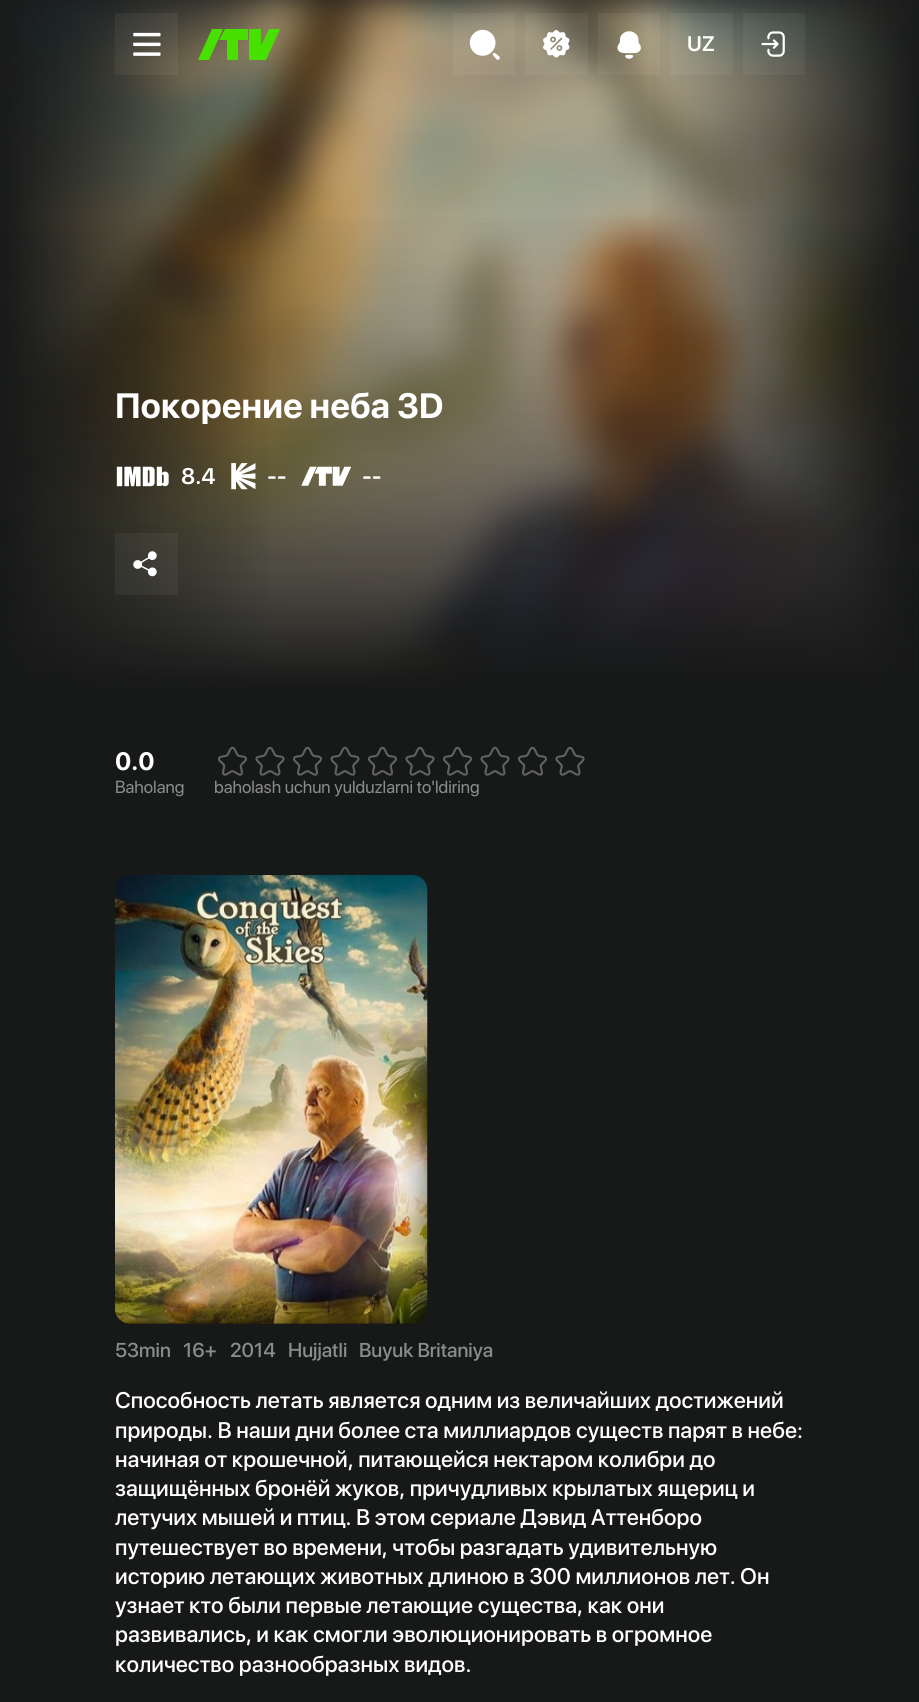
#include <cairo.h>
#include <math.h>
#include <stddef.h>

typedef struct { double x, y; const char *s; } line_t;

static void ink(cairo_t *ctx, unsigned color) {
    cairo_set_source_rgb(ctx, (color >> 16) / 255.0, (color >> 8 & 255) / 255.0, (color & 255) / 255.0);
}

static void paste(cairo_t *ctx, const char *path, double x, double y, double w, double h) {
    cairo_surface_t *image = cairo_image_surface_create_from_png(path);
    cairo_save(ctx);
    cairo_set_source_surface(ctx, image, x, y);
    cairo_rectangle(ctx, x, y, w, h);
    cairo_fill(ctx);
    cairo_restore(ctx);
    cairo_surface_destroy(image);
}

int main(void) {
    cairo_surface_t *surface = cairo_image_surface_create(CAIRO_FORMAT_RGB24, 919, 1702);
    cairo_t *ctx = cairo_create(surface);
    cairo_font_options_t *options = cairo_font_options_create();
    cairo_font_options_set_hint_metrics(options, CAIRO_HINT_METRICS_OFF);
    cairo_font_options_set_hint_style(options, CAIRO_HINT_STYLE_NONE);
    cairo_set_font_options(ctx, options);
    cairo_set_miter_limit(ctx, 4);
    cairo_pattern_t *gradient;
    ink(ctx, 0x171818);
    cairo_paint(ctx);
    paste(ctx, "media/6.png", 2, 0, 916, 687);
    gradient = cairo_pattern_create_linear(0, 345, 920, 345);
    cairo_pattern_add_color_stop_rgba(gradient, 0, 0.09, 0.094, 0.094, 1);
    cairo_pattern_add_color_stop_rgba(gradient, 0.3, 0.09, 0.094, 0.094, 0);
    cairo_set_source(ctx, gradient);
    cairo_pattern_destroy(gradient);
    cairo_rectangle(ctx, 2, 0, 268, 687);
    cairo_fill(ctx);
    gradient = cairo_pattern_create_linear(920, 345, 0, 345);
    cairo_pattern_add_color_stop_rgba(gradient, 0, 0.09, 0.094, 0.094, 1);
    cairo_pattern_add_color_stop_rgba(gradient, 0.3, 0.09, 0.094, 0.094, 0);
    cairo_set_source(ctx, gradient);
    cairo_pattern_destroy(gradient);
    cairo_rectangle(ctx, 650, 0, 268, 687);
    cairo_fill(ctx);
    gradient = cairo_pattern_create_linear(460, 690, 460, 0);
    cairo_pattern_add_color_stop_rgba(gradient, 0, 0.09, 0.094, 0.094, 1);
    cairo_pattern_add_color_stop_rgba(gradient, 0.7, 0.09, 0.094, 0.094, 0);
    cairo_set_source(ctx, gradient);
    cairo_pattern_destroy(gradient);
    cairo_rectangle(ctx, 4, 217, 911, 470);
    cairo_fill(ctx);
    gradient = cairo_pattern_create_linear(460, 0, 460, 690);
    cairo_pattern_add_color_stop_rgba(gradient, 0, 0.129, 0.137, 0.133, 0.3);
    cairo_pattern_add_color_stop_rgba(gradient, 1, 0.129, 0.137, 0.133, 0);
    cairo_set_source(ctx, gradient);
    cairo_pattern_destroy(gradient);
    cairo_rectangle(ctx, 0, 0, 919, 562);
    cairo_fill(ctx);
    cairo_set_source_rgba(ctx, 1, 1, 1, 0.05);
    cairo_rectangle(ctx, 115, 13, 63, 62);
    cairo_fill(ctx);
    paste(ctx, "media/1.png", 133, 32, 28, 24);
    ink(ctx, 0x47E000);
    cairo_new_path(ctx);
    cairo_move_to(ctx, 280, 29);
    cairo_line_to(ctx, 266, 60);
    cairo_line_to(ctx, 249, 60);
    cairo_line_to(ctx, 249, 29);
    cairo_line_to(ctx, 261, 29);
    cairo_line_to(ctx, 261, 46);
    cairo_line_to(ctx, 269, 29);
    cairo_close_path(ctx);
    cairo_move_to(ctx, 198, 60);
    cairo_line_to(ctx, 209, 60);
    cairo_line_to(ctx, 223, 29);
    cairo_line_to(ctx, 212, 29);
    cairo_close_path(ctx);
    cairo_move_to(ctx, 248, 29);
    cairo_line_to(ctx, 225, 29);
    cairo_line_to(ctx, 219, 40);
    cairo_line_to(ctx, 227, 40);
    cairo_line_to(ctx, 227, 60);
    cairo_line_to(ctx, 238, 60);
    cairo_line_to(ctx, 238, 40);
    cairo_line_to(ctx, 248, 40);
    cairo_close_path(ctx);
    cairo_fill(ctx);
    cairo_set_source_rgba(ctx, 1, 1, 1, 0.05);
    cairo_rectangle(ctx, 453, 13, 62, 62);
    cairo_fill(ctx);
    paste(ctx, "media/2.png", 469, 29, 31, 31);
    cairo_rectangle(ctx, 525, 13, 63, 62);
    cairo_fill(ctx);
    paste(ctx, "media/3.png", 543, 30, 27, 28);
    cairo_rectangle(ctx, 598, 13, 62, 62);
    cairo_fill(ctx);
    paste(ctx, "media/4.png", 617, 31, 24, 28);
    cairo_rectangle(ctx, 670, 13, 63, 62);
    cairo_fill(ctx);
    cairo_select_font_face(ctx, "SF Pro Display SemiBold", CAIRO_FONT_SLANT_NORMAL, CAIRO_FONT_WEIGHT_NORMAL);
    cairo_set_font_size(ctx, 21);
    ink(ctx, 0xFFFFFF);
    cairo_move_to(ctx, 687, 51);
    cairo_show_text(ctx, "UZ");
    cairo_set_source_rgba(ctx, 1, 1, 1, 0.05);
    cairo_rectangle(ctx, 743, 13, 62, 62);
    cairo_fill(ctx);
    paste(ctx, "media/5.png", 761, 31, 24, 26);
    cairo_select_font_face(ctx, "SF Pro Display", CAIRO_FONT_SLANT_NORMAL, CAIRO_FONT_WEIGHT_BOLD);
    cairo_set_font_size(ctx, 35);
    ink(ctx, 0xFFFFFF);
    cairo_move_to(ctx, 115, 418);
    cairo_show_text(ctx, "Покорение неба 3D");
    paste(ctx, "media/7.png", 116, 466, 53, 21);
    cairo_select_font_face(ctx, "SF Pro Display SemiBold", CAIRO_FONT_SLANT_NORMAL, CAIRO_FONT_WEIGHT_NORMAL);
    cairo_set_font_size(ctx, 22.5);
    cairo_move_to(ctx, 181, 484);
    cairo_show_text(ctx, "8.4");
    paste(ctx, "media/8.png", 231, 463, 25, 27);
    cairo_move_to(ctx, 267, 484);
    cairo_show_text(ctx, "--");
    paste(ctx, "media/9.png", 301, 466, 50, 20);
    cairo_move_to(ctx, 362, 484);
    cairo_show_text(ctx, "--");
    cairo_set_source_rgba(ctx, 1, 1, 1, 0.05);
    cairo_rectangle(ctx, 115, 533, 63, 62);
    cairo_fill(ctx);
    paste(ctx, "media/10.png", 133, 551, 24, 26);
    cairo_select_font_face(ctx, "SF Pro Display", CAIRO_FONT_SLANT_NORMAL, CAIRO_FONT_WEIGHT_BOLD);
    cairo_set_font_size(ctx, 25);
    ink(ctx, 0xFFFFFF);
    cairo_move_to(ctx, 115, 770);
    cairo_show_text(ctx, "0.0");
    paste(ctx, "media/11.png", 218, 746, 29, 30);
    paste(ctx, "media/12.png", 255, 746, 30, 30);
    paste(ctx, "media/11.png", 293, 746, 29, 30);
    paste(ctx, "media/12.png", 330, 746, 30, 30);
    paste(ctx, "media/11.png", 368, 746, 29, 30);
    paste(ctx, "media/12.png", 405, 746, 30, 30);
    paste(ctx, "media/11.png", 443, 746, 29, 30);
    paste(ctx, "media/12.png", 480, 746, 30, 30);
    paste(ctx, "media/11.png", 518, 746, 29, 30);
    paste(ctx, "media/12.png", 555, 746, 30, 30);
    cairo_select_font_face(ctx, "SF Pro Display", CAIRO_FONT_SLANT_NORMAL, CAIRO_FONT_WEIGHT_NORMAL);
    cairo_set_font_size(ctx, 17.5);
    ink(ctx, 0x8B8C8C);
    cairo_move_to(ctx, 115, 793);
    cairo_show_text(ctx, "Baholang");
    cairo_move_to(ctx, 214, 793);
    cairo_show_text(ctx, "baholash uchun yulduzlarni to'ldiring");
    paste(ctx, "media/13.png", 115, 875, 313, 449);
    cairo_select_font_face(ctx, "SF Pro Display Medium", CAIRO_FONT_SLANT_NORMAL, CAIRO_FONT_WEIGHT_NORMAL);
    cairo_set_font_size(ctx, 20);
    {
        static const line_t items[] = {
            {115, 1357, "53min"},
            {183, 1357, "16+"},
            {230, 1357, "2014"},
            {288, 1357, "Hujjatli"},
            {359, 1357, "Buyuk Britaniya"},
        };
        for (size_t i = 0; i < sizeof items / sizeof *items; i++) {
            cairo_move_to(ctx, items[i].x, items[i].y);
            cairo_show_text(ctx, items[i].s);
        }
    }
    cairo_set_font_size(ctx, 22.5);
    ink(ctx, 0xFFFFFF);
    {
        static const line_t items[] = {
            {115, 1408, "Способность летать является одним из величайших достижений"},
            {115, 1438, "природы. В наши дни более ста миллиардов существ парят в небе:"},
            {115, 1467, "начиная от крошечной, питающейся нектаром колибри до"},
            {115, 1496, "защищённых бронёй жуков, причудливых крылатых ящериц и"},
            {115, 1525, "летучих мышей и птиц. В этом сериале Дэвид Аттенборо"},
            {115, 1555, "путешествует во времени, чтобы разгадать удивительную"},
            {115, 1584, "историю летающих животных длиною в 300 миллионов лет. Он"},
            {115, 1613, "узнает кто были первые летающие существа, как они"},
            {115, 1642, "развивались, и как смогли эволюционировать в огромное"},
            {115, 1672, "количество разнообразных видов."},
        };
        for (size_t i = 0; i < sizeof items / sizeof *items; i++) {
            cairo_move_to(ctx, items[i].x, items[i].y);
            cairo_show_text(ctx, items[i].s);
        }
    }
    cairo_surface_write_to_png(surface, "image.png");
    cairo_font_options_destroy(options);
    cairo_destroy(ctx);
    cairo_surface_destroy(surface);
    return 0;
}
